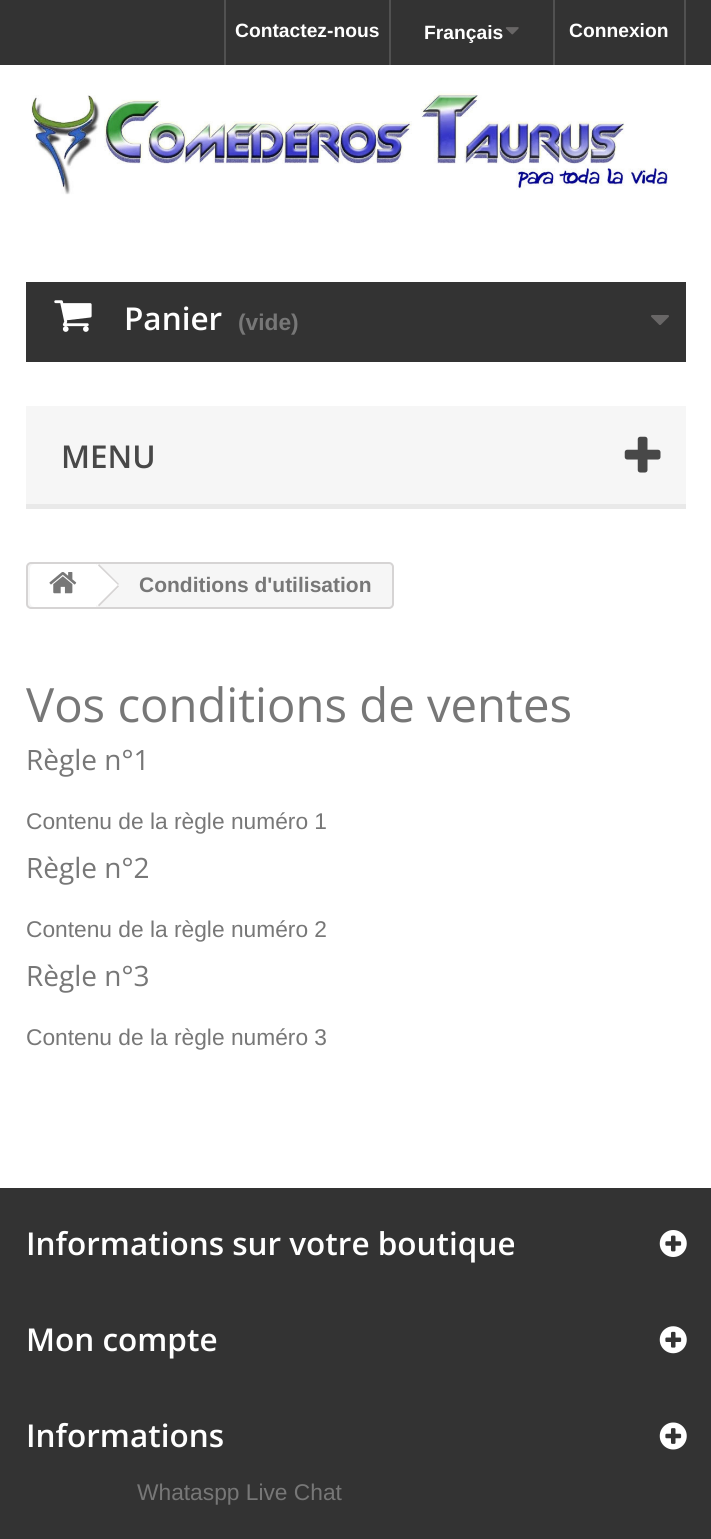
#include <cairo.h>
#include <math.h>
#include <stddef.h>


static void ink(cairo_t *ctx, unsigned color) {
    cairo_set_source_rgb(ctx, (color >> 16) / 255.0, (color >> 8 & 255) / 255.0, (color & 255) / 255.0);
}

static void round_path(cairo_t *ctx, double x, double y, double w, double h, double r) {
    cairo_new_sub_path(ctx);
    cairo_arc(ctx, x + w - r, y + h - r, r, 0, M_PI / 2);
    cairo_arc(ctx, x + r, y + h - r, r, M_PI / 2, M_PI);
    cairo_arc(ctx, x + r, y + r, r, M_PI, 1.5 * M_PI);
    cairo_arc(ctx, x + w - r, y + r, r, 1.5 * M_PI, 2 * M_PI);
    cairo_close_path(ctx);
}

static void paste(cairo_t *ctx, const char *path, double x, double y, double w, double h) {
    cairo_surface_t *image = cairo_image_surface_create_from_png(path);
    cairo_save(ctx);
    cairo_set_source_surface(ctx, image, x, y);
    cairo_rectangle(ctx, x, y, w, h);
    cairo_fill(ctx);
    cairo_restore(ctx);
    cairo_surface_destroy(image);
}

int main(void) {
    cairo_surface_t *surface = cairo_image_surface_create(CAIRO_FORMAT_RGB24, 711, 1539);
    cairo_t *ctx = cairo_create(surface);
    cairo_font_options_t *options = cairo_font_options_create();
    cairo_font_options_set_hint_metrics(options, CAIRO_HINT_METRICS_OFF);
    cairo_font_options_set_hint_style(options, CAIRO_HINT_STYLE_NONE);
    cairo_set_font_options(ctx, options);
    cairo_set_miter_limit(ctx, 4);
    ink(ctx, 0xFFFFFF);
    cairo_paint(ctx);
    ink(ctx, 0x333333);
    cairo_rectangle(ctx, 0, 0, 711, 65);
    cairo_fill(ctx);
    ink(ctx, 0x515151);
    cairo_rectangle(ctx, 224, 0, 2, 65);
    cairo_fill(ctx);
    cairo_select_font_face(ctx, "Liberation Sans", CAIRO_FONT_SLANT_NORMAL, CAIRO_FONT_WEIGHT_BOLD);
    cairo_set_font_size(ctx, 19.25);
    ink(ctx, 0xFFFFFF);
    cairo_move_to(ctx, 235, 37);
    cairo_show_text(ctx, "Contactez-nous");
    ink(ctx, 0x515151);
    cairo_rectangle(ctx, 389, 0, 2, 65);
    cairo_fill(ctx);
    ink(ctx, 0xFFFFFF);
    cairo_move_to(ctx, 424, 39);
    cairo_show_text(ctx, "Français");
    paste(ctx, "media/1.png", 505, 27, 14, 8);
    ink(ctx, 0x515151);
    cairo_rectangle(ctx, 684, 0, 2, 65);
    cairo_fill(ctx);
    cairo_rectangle(ctx, 553, 0, 2, 65);
    cairo_fill(ctx);
    ink(ctx, 0xFFFFFF);
    cairo_move_to(ctx, 569, 37);
    cairo_show_text(ctx, "Connexion");
    paste(ctx, "media/2.png", 31, 91, 637, 104);
    ink(ctx, 0x333333);
    cairo_rectangle(ctx, 26, 282, 660, 80);
    cairo_fill(ctx);
    paste(ctx, "media/3.png", 54, 300, 38, 32);
    cairo_select_font_face(ctx, "Open Sans SemiBold", CAIRO_FONT_SLANT_NORMAL, CAIRO_FONT_WEIGHT_NORMAL);
    cairo_set_font_size(ctx, 31.5);
    ink(ctx, 0xFFFFFF);
    cairo_move_to(ctx, 124, 330);
    cairo_show_text(ctx, "Panier");
    cairo_select_font_face(ctx, "Liberation Sans", CAIRO_FONT_SLANT_NORMAL, CAIRO_FONT_WEIGHT_BOLD);
    cairo_set_font_size(ctx, 22.75);
    ink(ctx, 0x777777);
    cairo_move_to(ctx, 238, 330);
    cairo_show_text(ctx, "(vide)");
    paste(ctx, "media/4.png", 651, 315, 18, 10);
    ink(ctx, 0xF6F6F6);
    cairo_rectangle(ctx, 26, 406, 660, 98);
    cairo_fill(ctx);
    ink(ctx, 0xE9E9E9);
    cairo_rectangle(ctx, 26, 504, 660, 5);
    cairo_fill(ctx);
    cairo_select_font_face(ctx, "Open Sans SemiBold", CAIRO_FONT_SLANT_NORMAL, CAIRO_FONT_WEIGHT_NORMAL);
    cairo_set_font_size(ctx, 31.5);
    ink(ctx, 0x484848);
    cairo_move_to(ctx, 61, 468);
    cairo_show_text(ctx, "MENU");
    paste(ctx, "media/5.png", 624, 436, 37, 37);
    ink(ctx, 0xF6F6F6);
    round_path(ctx, 27, 563, 366, 45, 4);
    cairo_fill_preserve(ctx);
    ink(ctx, 0xD6D4D4);
    cairo_stroke(ctx);
    ink(ctx, 0xFFFFFF);
    cairo_new_path(ctx);
    cairo_move_to(ctx, 35, 564);
    cairo_line_to(ctx, 96, 564);
    cairo_line_to(ctx, 96, 607);
    cairo_line_to(ctx, 35, 607);
    cairo_curve_to(ctx, 32, 607, 30, 605, 30, 602);
    cairo_line_to(ctx, 30, 569);
    cairo_curve_to(ctx, 30, 566, 32, 564, 35, 564);
    cairo_close_path(ctx);
    cairo_fill(ctx);
    paste(ctx, "media/6.png", 49, 572, 28, 22);
    cairo_new_path(ctx);
    cairo_move_to(ctx, 100, 565);
    cairo_line_to(ctx, 118, 583);
    cairo_curve_to(ctx, 119, 584, 119, 586, 118, 588);
    cairo_line_to(ctx, 100, 605);
    cairo_curve_to(ctx, 99, 606, 97, 606, 96, 605);
    cairo_line_to(ctx, 78, 588);
    cairo_curve_to(ctx, 77, 586, 77, 584, 78, 583);
    cairo_line_to(ctx, 96, 565);
    cairo_curve_to(ctx, 97, 564, 99, 564, 100, 565);
    cairo_close_path(ctx);
    cairo_fill(ctx);
    ink(ctx, 0xD6D4D4);
    cairo_new_path(ctx);
    cairo_move_to(ctx, 99, 564);
    cairo_line_to(ctx, 119, 584);
    cairo_line_to(ctx, 118, 585);
    cairo_line_to(ctx, 98, 565.5);
    cairo_close_path(ctx);
    cairo_move_to(ctx, 118, 585);
    cairo_line_to(ctx, 119, 586.5);
    cairo_line_to(ctx, 99, 606.5);
    cairo_line_to(ctx, 98, 605);
    cairo_close_path(ctx);
    cairo_fill(ctx);
    cairo_select_font_face(ctx, "Liberation Sans", CAIRO_FONT_SLANT_NORMAL, CAIRO_FONT_WEIGHT_BOLD);
    cairo_set_font_size(ctx, 21);
    ink(ctx, 0x777777);
    cairo_move_to(ctx, 139, 592);
    cairo_show_text(ctx, "Conditions d'utilisation");
    cairo_select_font_face(ctx, "Open Sans", CAIRO_FONT_SLANT_NORMAL, CAIRO_FONT_WEIGHT_NORMAL);
    cairo_set_font_size(ctx, 47.25);
    cairo_move_to(ctx, 26, 722);
    cairo_show_text(ctx, "Vos conditions de ventes");
    cairo_set_font_size(ctx, 28);
    cairo_move_to(ctx, 26, 770);
    cairo_show_text(ctx, "Règle n°1");
    cairo_select_font_face(ctx, "Liberation Sans", CAIRO_FONT_SLANT_NORMAL, CAIRO_FONT_WEIGHT_NORMAL);
    cairo_set_font_size(ctx, 22.75);
    cairo_move_to(ctx, 26, 829);
    cairo_show_text(ctx, "Contenu de la règle numéro 1");
    cairo_select_font_face(ctx, "Open Sans", CAIRO_FONT_SLANT_NORMAL, CAIRO_FONT_WEIGHT_NORMAL);
    cairo_set_font_size(ctx, 28);
    cairo_move_to(ctx, 26, 878);
    cairo_show_text(ctx, "Règle n°2");
    cairo_select_font_face(ctx, "Liberation Sans", CAIRO_FONT_SLANT_NORMAL, CAIRO_FONT_WEIGHT_NORMAL);
    cairo_set_font_size(ctx, 22.75);
    cairo_move_to(ctx, 26, 937);
    cairo_show_text(ctx, "Contenu de la règle numéro 2");
    cairo_select_font_face(ctx, "Open Sans", CAIRO_FONT_SLANT_NORMAL, CAIRO_FONT_WEIGHT_NORMAL);
    cairo_set_font_size(ctx, 28);
    cairo_move_to(ctx, 26, 986);
    cairo_show_text(ctx, "Règle n°3");
    cairo_select_font_face(ctx, "Liberation Sans", CAIRO_FONT_SLANT_NORMAL, CAIRO_FONT_WEIGHT_NORMAL);
    cairo_set_font_size(ctx, 22.75);
    cairo_move_to(ctx, 26, 1045);
    cairo_show_text(ctx, "Contenu de la règle numéro 3");
    ink(ctx, 0x333333);
    cairo_rectangle(ctx, 0, 1188, 711, 351);
    cairo_fill(ctx);
    cairo_select_font_face(ctx, "Open Sans SemiBold", CAIRO_FONT_SLANT_NORMAL, CAIRO_FONT_WEIGHT_NORMAL);
    cairo_set_font_size(ctx, 31.5);
    ink(ctx, 0xFFFFFF);
    cairo_move_to(ctx, 26, 1255);
    cairo_show_text(ctx, "Informations sur votre boutique");
    paste(ctx, "media/7.png", 659, 1230, 28, 27);
    cairo_move_to(ctx, 26, 1351);
    cairo_show_text(ctx, "Mon compte");
    paste(ctx, "media/8.png", 659, 1326, 28, 28);
    cairo_move_to(ctx, 26, 1447);
    cairo_show_text(ctx, "Informations");
    paste(ctx, "media/9.png", 659, 1422, 28, 28);
    cairo_select_font_face(ctx, "Liberation Sans", CAIRO_FONT_SLANT_NORMAL, CAIRO_FONT_WEIGHT_NORMAL);
    cairo_set_font_size(ctx, 22.75);
    ink(ctx, 0x777777);
    cairo_move_to(ctx, 137, 1500);
    cairo_show_text(ctx, "Whataspp Live Chat");
    cairo_surface_write_to_png(surface, "image.png");
    cairo_font_options_destroy(options);
    cairo_destroy(ctx);
    cairo_surface_destroy(surface);
    return 0;
}
